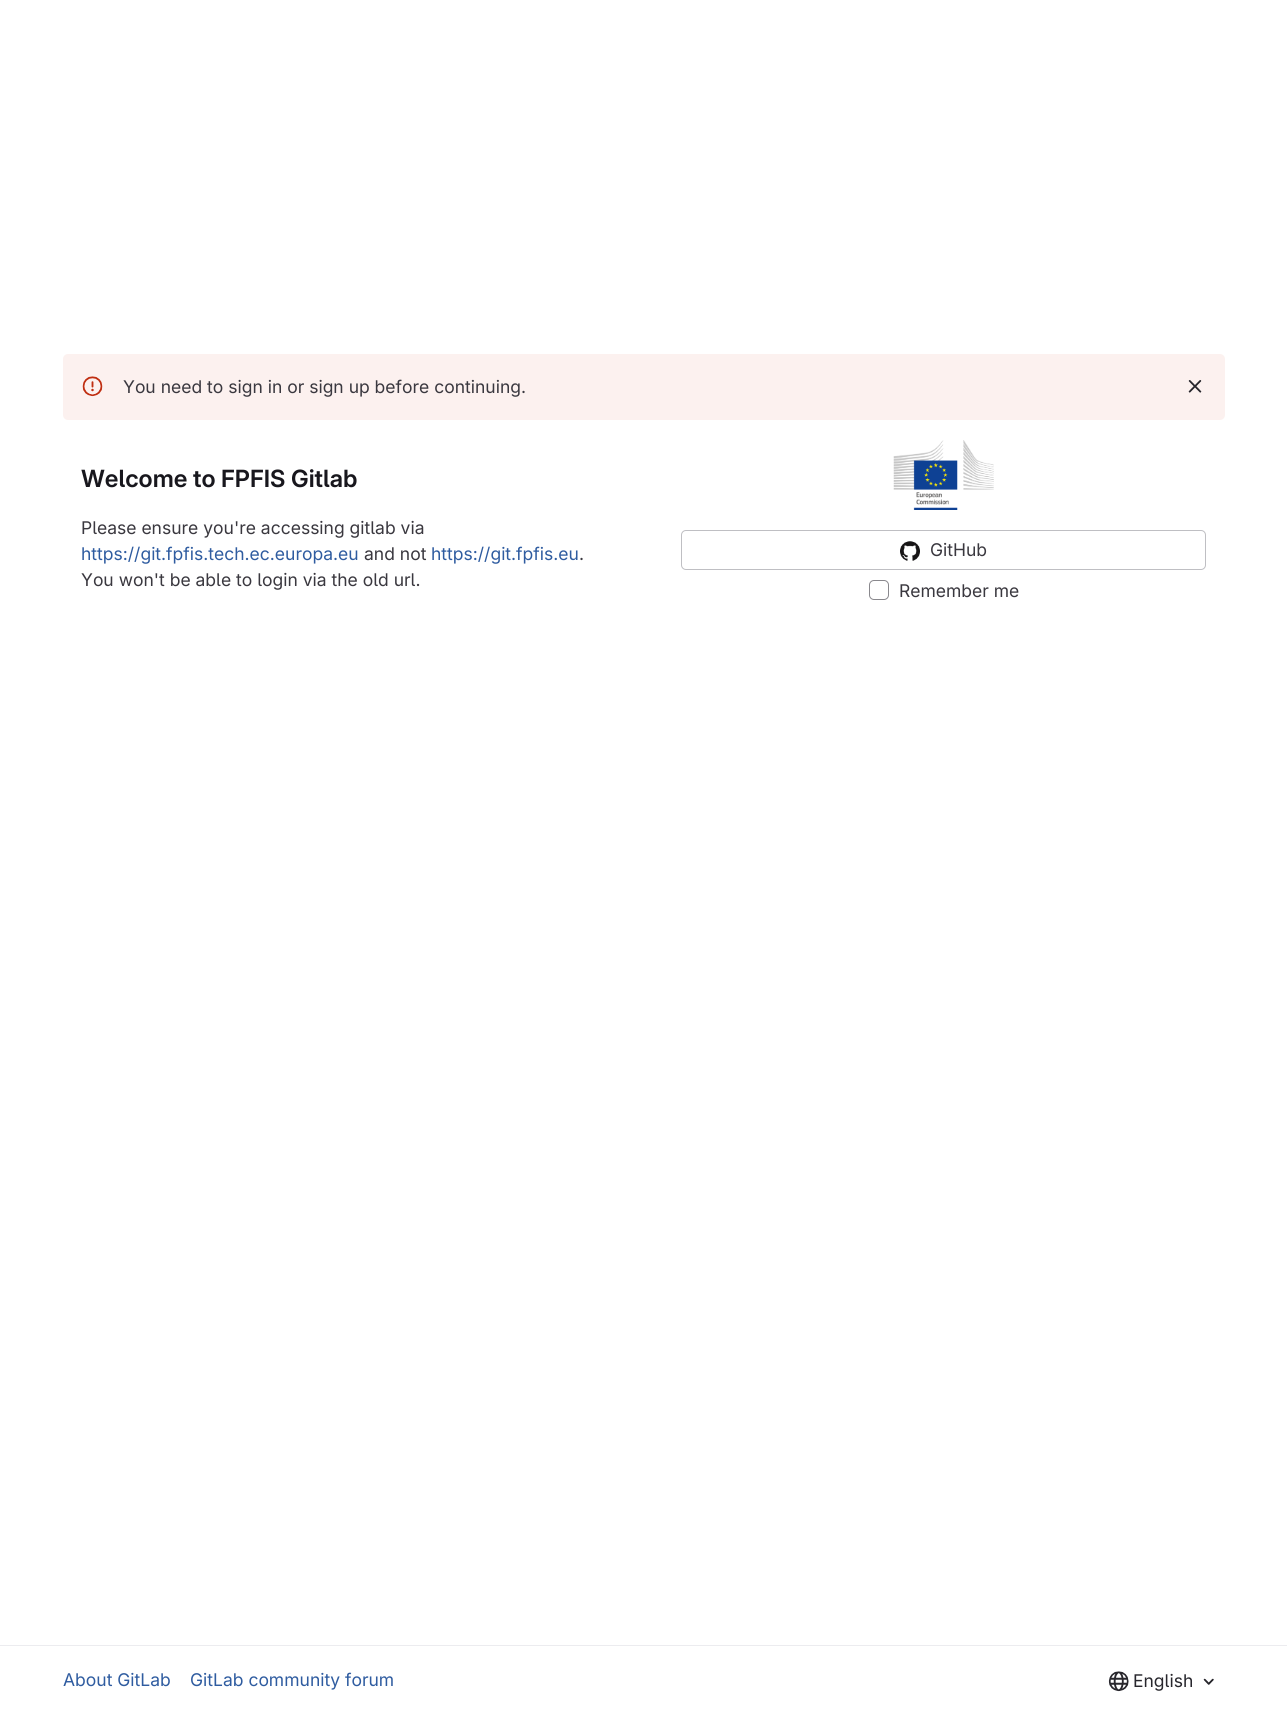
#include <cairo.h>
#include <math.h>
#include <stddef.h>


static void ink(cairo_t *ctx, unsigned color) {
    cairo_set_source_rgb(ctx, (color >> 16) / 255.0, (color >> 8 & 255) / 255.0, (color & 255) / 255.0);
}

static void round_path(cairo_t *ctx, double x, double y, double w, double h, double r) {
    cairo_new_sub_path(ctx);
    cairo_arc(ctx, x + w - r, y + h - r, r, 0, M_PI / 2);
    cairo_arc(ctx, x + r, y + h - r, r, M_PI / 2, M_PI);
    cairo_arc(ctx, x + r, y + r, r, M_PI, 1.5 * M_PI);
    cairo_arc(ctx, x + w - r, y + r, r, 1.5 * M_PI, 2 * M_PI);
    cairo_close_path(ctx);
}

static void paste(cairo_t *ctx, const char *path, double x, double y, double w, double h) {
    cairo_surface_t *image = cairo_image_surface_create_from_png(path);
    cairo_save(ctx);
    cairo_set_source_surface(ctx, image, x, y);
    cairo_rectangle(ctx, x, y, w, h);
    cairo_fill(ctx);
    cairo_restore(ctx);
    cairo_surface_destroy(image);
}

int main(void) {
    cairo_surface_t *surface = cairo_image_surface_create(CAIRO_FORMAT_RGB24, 1287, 1716);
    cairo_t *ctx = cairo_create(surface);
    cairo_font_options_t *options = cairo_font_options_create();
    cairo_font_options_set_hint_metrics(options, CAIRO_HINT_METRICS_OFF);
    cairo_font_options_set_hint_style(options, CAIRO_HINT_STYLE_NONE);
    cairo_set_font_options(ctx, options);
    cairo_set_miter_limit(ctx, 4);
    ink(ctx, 0xFFFFFF);
    cairo_paint(ctx);
    ink(ctx, 0xFCF1EF);
    round_path(ctx, 63, 354, 1162, 66, 5);
    cairo_fill(ctx);
    paste(ctx, "media/1.png", 82, 376, 21, 21);
    cairo_select_font_face(ctx, "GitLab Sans", CAIRO_FONT_SLANT_NORMAL, CAIRO_FONT_WEIGHT_NORMAL);
    cairo_set_font_size(ctx, 17.5);
    ink(ctx, 0x3A383F);
    cairo_move_to(ctx, 123, 393);
    cairo_show_text(ctx, "You need to sign in or sign up before continuing.");
    paste(ctx, "media/2.png", 1188, 380, 14, 13);
    cairo_select_font_face(ctx, "GitLab Sans SemiBold", CAIRO_FONT_SLANT_NORMAL, CAIRO_FONT_WEIGHT_NORMAL);
    cairo_set_font_size(ctx, 23.75);
    ink(ctx, 0x18171D);
    cairo_move_to(ctx, 81, 487);
    cairo_show_text(ctx, "Welcome to FPFIS Gitlab");
    cairo_select_font_face(ctx, "GitLab Sans", CAIRO_FONT_SLANT_NORMAL, CAIRO_FONT_WEIGHT_NORMAL);
    cairo_set_font_size(ctx, 17.5);
    ink(ctx, 0x3A383F);
    cairo_move_to(ctx, 81, 534);
    cairo_show_text(ctx, "Please ensure you're accessing gitlab via");
    ink(ctx, 0x2F5CA0);
    cairo_move_to(ctx, 81, 560);
    cairo_show_text(ctx, "https://git.fpfis.tech.ec.europa.eu");
    ink(ctx, 0x3A383F);
    cairo_move_to(ctx, 364, 560);
    cairo_show_text(ctx, "and not");
    ink(ctx, 0x2F5CA0);
    cairo_move_to(ctx, 431, 560);
    cairo_show_text(ctx, "https://git.fpfis.eu");
    ink(ctx, 0x3A383F);
    cairo_move_to(ctx, 579, 560);
    cairo_show_text(ctx, ".");
    cairo_move_to(ctx, 81, 586);
    cairo_show_text(ctx, "You won't be able to login via the old url.");
    paste(ctx, "media/3.png", 893, 440, 101, 70);
    round_path(ctx, 681.5, 530.5, 524, 39, 4.5);
    ink(ctx, 0xBFBFC3);
    cairo_set_line_width(ctx, 1);
    cairo_stroke(ctx);
    paste(ctx, "media/4.png", 900, 541, 20, 20);
    ink(ctx, 0x3A383F);
    cairo_move_to(ctx, 930, 556);
    cairo_show_text(ctx, "GitHub");
    round_path(ctx, 869.5, 580.5, 19, 19, 4.5);
    ink(ctx, 0x89888D);
    cairo_stroke(ctx);
    ink(ctx, 0x3A383F);
    cairo_move_to(ctx, 899, 597);
    cairo_show_text(ctx, "Remember me");
    ink(ctx, 0xECECEF);
    cairo_rectangle(ctx, 0, 1645, 1287, 1);
    cairo_fill(ctx);
    ink(ctx, 0x2F5CA0);
    cairo_move_to(ctx, 63, 1686);
    cairo_show_text(ctx, "About GitLab");
    cairo_move_to(ctx, 190, 1686);
    cairo_show_text(ctx, "GitLab community forum");
    paste(ctx, "media/5.png", 1108, 1671, 21, 21);
    ink(ctx, 0x28272D);
    cairo_move_to(ctx, 1133, 1687);
    cairo_show_text(ctx, "English");
    paste(ctx, "media/6.png", 1203, 1678, 11, 7);
    cairo_surface_write_to_png(surface, "image.png");
    cairo_font_options_destroy(options);
    cairo_destroy(ctx);
    cairo_surface_destroy(surface);
    return 0;
}
